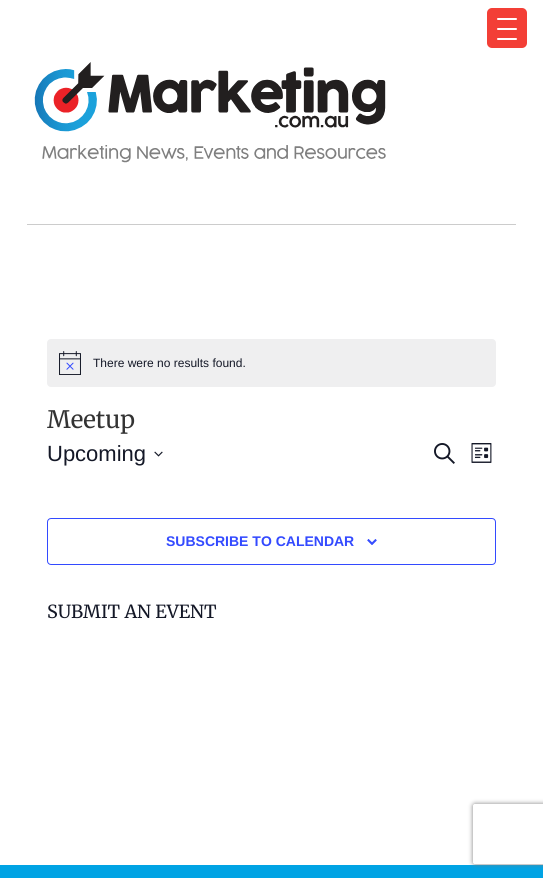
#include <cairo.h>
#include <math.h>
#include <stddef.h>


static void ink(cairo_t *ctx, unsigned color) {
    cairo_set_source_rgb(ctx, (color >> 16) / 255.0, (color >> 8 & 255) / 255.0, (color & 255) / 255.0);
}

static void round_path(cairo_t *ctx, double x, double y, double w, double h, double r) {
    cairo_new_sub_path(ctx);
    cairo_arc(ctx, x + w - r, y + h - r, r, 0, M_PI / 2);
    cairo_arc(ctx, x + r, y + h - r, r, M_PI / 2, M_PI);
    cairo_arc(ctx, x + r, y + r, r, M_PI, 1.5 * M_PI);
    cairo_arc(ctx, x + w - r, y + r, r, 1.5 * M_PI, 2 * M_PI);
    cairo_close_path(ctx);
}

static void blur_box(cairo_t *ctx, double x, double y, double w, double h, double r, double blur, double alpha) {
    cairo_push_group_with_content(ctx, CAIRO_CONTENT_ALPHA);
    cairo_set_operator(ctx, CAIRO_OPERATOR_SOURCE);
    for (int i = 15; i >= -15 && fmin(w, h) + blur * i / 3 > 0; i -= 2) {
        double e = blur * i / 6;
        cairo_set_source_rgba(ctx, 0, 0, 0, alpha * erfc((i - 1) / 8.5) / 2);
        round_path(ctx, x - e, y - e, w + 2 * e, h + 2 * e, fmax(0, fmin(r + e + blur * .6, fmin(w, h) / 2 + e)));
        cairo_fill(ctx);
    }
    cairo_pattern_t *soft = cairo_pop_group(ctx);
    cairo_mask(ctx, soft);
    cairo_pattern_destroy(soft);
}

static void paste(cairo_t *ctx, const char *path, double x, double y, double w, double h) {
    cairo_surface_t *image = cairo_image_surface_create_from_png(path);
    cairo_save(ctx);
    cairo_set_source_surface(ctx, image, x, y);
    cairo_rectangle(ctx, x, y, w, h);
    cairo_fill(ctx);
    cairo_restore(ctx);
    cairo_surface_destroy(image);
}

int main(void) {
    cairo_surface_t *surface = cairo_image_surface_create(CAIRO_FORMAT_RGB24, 543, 878);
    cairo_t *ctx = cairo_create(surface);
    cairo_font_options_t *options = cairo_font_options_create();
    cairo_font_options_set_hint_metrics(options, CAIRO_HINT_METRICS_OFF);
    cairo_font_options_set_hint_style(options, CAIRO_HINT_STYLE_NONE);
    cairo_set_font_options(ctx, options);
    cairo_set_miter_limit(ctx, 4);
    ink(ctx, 0xFFFFFF);
    cairo_paint(ctx);
    ink(ctx, 0xF33F36);
    round_path(ctx, 487, 8, 40, 40, 5);
    cairo_fill(ctx);
    ink(ctx, 0xFFFFFF);
    round_path(ctx, 497, 28, 20, 2, 1);
    cairo_fill(ctx);
    round_path(ctx, 497, 18, 20, 2, 1);
    cairo_fill(ctx);
    round_path(ctx, 497, 38, 20, 2, 1);
    cairo_fill(ctx);
    ink(ctx, 0xCCCCCC);
    cairo_rectangle(ctx, 27, 224, 489, 1);
    cairo_fill(ctx);
    paste(ctx, "media/1.png", 34, 62, 352, 101);
    ink(ctx, 0xEFEFF0);
    round_path(ctx, 47, 339, 449, 48, 4);
    cairo_fill(ctx);
    paste(ctx, "media/2.png", 59, 351, 22, 24);
    cairo_select_font_face(ctx, "Liberation Sans", CAIRO_FONT_SLANT_NORMAL, CAIRO_FONT_WEIGHT_NORMAL);
    cairo_set_font_size(ctx, 12);
    ink(ctx, 0x141827);
    cairo_move_to(ctx, 93, 367);
    cairo_show_text(ctx, "There were no results found.");
    cairo_select_font_face(ctx, "Merriweather", CAIRO_FONT_SLANT_NORMAL, CAIRO_FONT_WEIGHT_NORMAL);
    cairo_set_font_size(ctx, 24);
    ink(ctx, 0x333333);
    cairo_move_to(ctx, 47, 428);
    cairo_show_text(ctx, "Meetup");
    cairo_select_font_face(ctx, "Liberation Sans", CAIRO_FONT_SLANT_NORMAL, CAIRO_FONT_WEIGHT_NORMAL);
    cairo_set_font_size(ctx, 22);
    ink(ctx, 0x141827);
    cairo_move_to(ctx, 47, 461);
    cairo_show_text(ctx, "Upcoming");
    paste(ctx, "media/3.png", 154, 451, 9, 6);
    paste(ctx, "media/4.png", 434, 443, 21, 21);
    paste(ctx, "media/5.png", 471, 443, 21, 20);
    round_path(ctx, 47.5, 518.5, 448, 46, 3.5);
    ink(ctx, 0x334AFF);
    cairo_set_line_width(ctx, 1);
    cairo_stroke(ctx);
    cairo_select_font_face(ctx, "Liberation Sans", CAIRO_FONT_SLANT_NORMAL, CAIRO_FONT_WEIGHT_BOLD);
    cairo_set_font_size(ctx, 14);
    cairo_move_to(ctx, 166, 546);
    cairo_show_text(ctx, "SUBSCRIBE TO CALENDAR");
    paste(ctx, "media/6.png", 367, 539, 10, 6);
    cairo_select_font_face(ctx, "Merriweather", CAIRO_FONT_SLANT_NORMAL, CAIRO_FONT_WEIGHT_NORMAL);
    cairo_set_font_size(ctx, 18);
    ink(ctx, 0x141827);
    cairo_move_to(ctx, 47, 618);
    cairo_show_text(ctx, "SUBMIT AN EVENT");
    ink(ctx, 0x00A3E4);
    cairo_rectangle(ctx, 0, 865, 543, 13);
    cairo_fill(ctx);
    cairo_save(ctx);
    cairo_set_fill_rule(ctx, CAIRO_FILL_RULE_EVEN_ODD);
    cairo_new_path(ctx);
    cairo_move_to(ctx, 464, 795);
    cairo_line_to(ctx, 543, 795);
    cairo_line_to(ctx, 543, 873);
    cairo_line_to(ctx, 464, 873);
    cairo_close_path(ctx);
    cairo_move_to(ctx, 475, 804);
    cairo_line_to(ctx, 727, 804);
    cairo_curve_to(ctx, 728, 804, 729, 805, 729, 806);
    cairo_line_to(ctx, 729, 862);
    cairo_curve_to(ctx, 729, 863, 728, 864, 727, 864);
    cairo_line_to(ctx, 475, 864);
    cairo_curve_to(ctx, 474, 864, 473, 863, 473, 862);
    cairo_line_to(ctx, 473, 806);
    cairo_curve_to(ctx, 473, 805, 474, 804, 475, 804);
    cairo_close_path(ctx);
    cairo_clip(ctx);
    ink(ctx, 0x808080);
    blur_box(ctx, 473, 804, 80, 60, 2, 2.5, 1);
    cairo_restore(ctx);
    cairo_surface_write_to_png(surface, "image.png");
    cairo_font_options_destroy(options);
    cairo_destroy(ctx);
    cairo_surface_destroy(surface);
    return 0;
}
